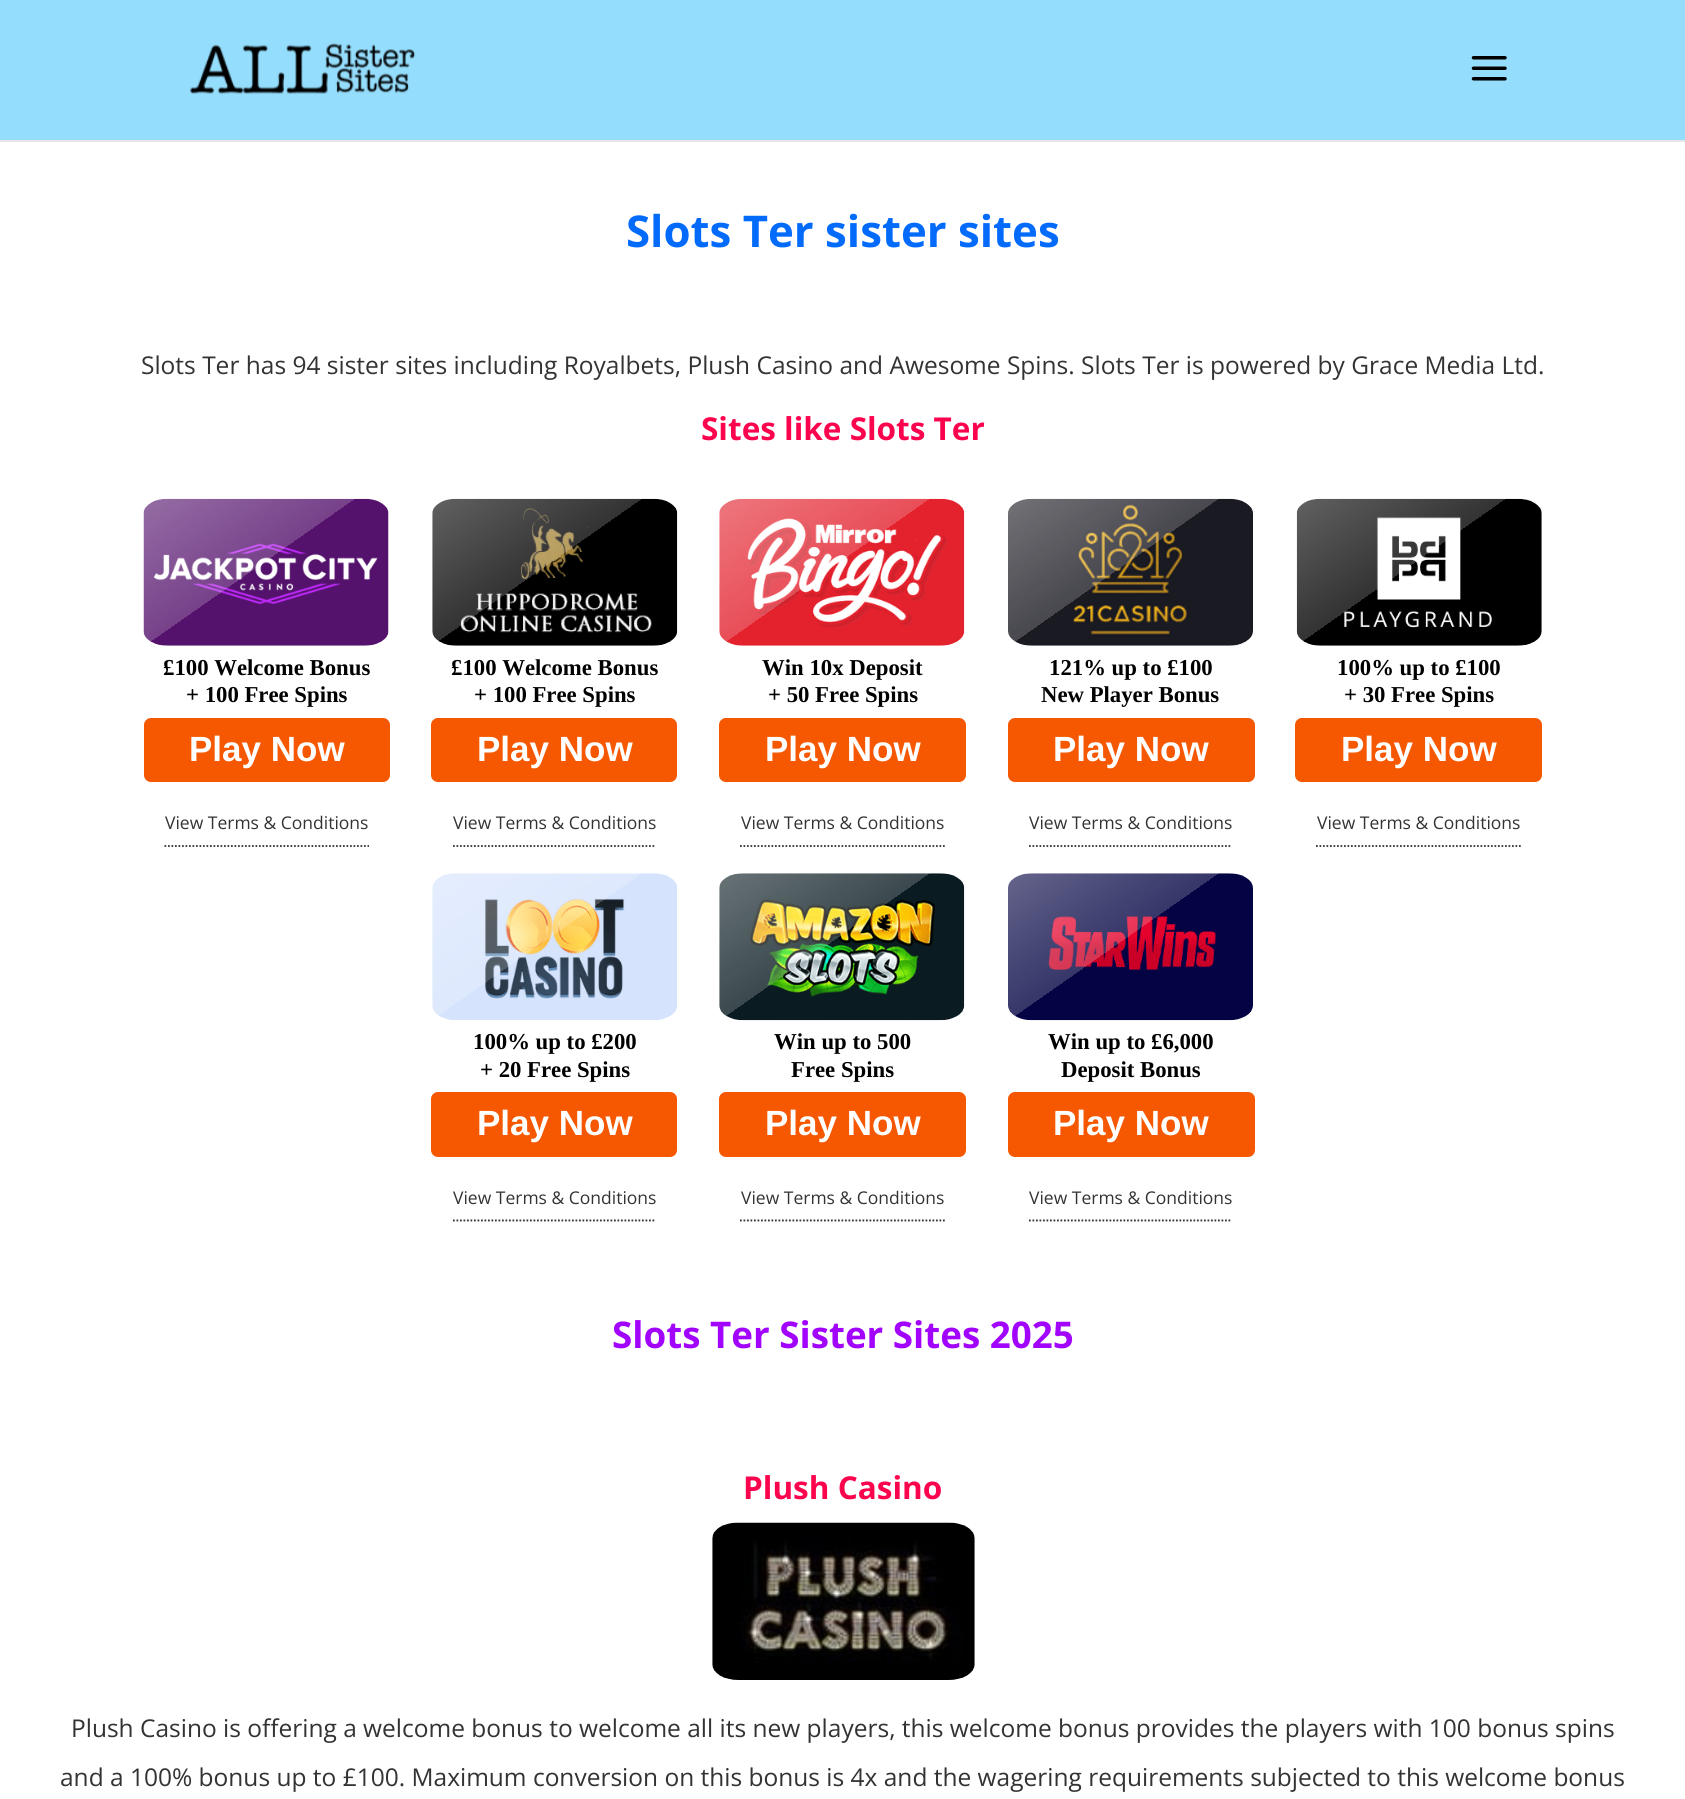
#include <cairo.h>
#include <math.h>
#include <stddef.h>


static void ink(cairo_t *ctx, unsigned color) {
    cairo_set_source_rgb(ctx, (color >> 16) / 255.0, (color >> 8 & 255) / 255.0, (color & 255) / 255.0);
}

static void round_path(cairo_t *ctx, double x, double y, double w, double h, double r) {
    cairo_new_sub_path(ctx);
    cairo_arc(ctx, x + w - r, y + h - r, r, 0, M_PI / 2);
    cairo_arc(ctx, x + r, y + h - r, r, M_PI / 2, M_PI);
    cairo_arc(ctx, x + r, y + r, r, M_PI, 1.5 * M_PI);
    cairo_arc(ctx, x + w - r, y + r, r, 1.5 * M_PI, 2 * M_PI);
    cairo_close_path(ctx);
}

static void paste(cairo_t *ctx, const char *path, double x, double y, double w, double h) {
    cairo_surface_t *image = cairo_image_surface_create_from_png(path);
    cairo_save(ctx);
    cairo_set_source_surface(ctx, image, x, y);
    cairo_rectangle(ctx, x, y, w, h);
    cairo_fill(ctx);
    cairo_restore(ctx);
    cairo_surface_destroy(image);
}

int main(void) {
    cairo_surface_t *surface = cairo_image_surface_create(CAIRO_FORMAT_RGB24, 1685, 1799);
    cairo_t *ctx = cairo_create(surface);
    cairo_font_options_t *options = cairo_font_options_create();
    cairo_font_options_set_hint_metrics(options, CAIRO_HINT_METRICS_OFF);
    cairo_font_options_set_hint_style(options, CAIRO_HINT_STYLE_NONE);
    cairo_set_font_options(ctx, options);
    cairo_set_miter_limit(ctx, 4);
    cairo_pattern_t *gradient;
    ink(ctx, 0xFFFFFF);
    cairo_paint(ctx);
    ink(ctx, 0xE6E6E6);
    cairo_rectangle(ctx, 0, 140, 1685, 2);
    cairo_fill(ctx);
    ink(ctx, 0x95DDFC);
    cairo_rectangle(ctx, 0, 0, 1685, 140);
    cairo_fill(ctx);
    paste(ctx, "media/1.png", 190, 43, 226, 51);
    paste(ctx, "media/2.png", 1471, 56, 36, 25);
    cairo_select_font_face(ctx, "Open Sans", CAIRO_FONT_SLANT_NORMAL, CAIRO_FONT_WEIGHT_BOLD);
    cairo_set_font_size(ctx, 43.75);
    ink(ctx, 0x036BFC);
    cairo_move_to(ctx, 626, 247);
    cairo_show_text(ctx, "Slots Ter sister sites");
    cairo_select_font_face(ctx, "Open Sans", CAIRO_FONT_SLANT_NORMAL, CAIRO_FONT_WEIGHT_NORMAL);
    cairo_set_font_size(ctx, 24.5);
    ink(ctx, 0x333333);
    cairo_move_to(ctx, 141, 374);
    cairo_show_text(ctx, "Slots Ter has 94 sister sites including Royalbets, Plush Casino and Awesome Spins. Slots Ter is powered by Grace Media Ltd.");
    cairo_select_font_face(ctx, "Open Sans", CAIRO_FONT_SLANT_NORMAL, CAIRO_FONT_WEIGHT_BOLD);
    cairo_set_font_size(ctx, 31.5);
    ink(ctx, 0xFC034E);
    cairo_move_to(ctx, 701, 440);
    cairo_show_text(ctx, "Sites like Slots Ter");
    paste(ctx, "media/3.png", 143, 498, 246, 148);
    ink(ctx, 0xF55800);
    round_path(ctx, 145, 719, 244, 62, 6);
    cairo_fill_preserve(ctx);
    cairo_stroke(ctx);
    cairo_new_path(ctx);
    cairo_move_to(ctx, 164.5, 846);
    cairo_line_to(ctx, 369, 846);
    ink(ctx, 0x000000);
    cairo_set_line_width(ctx, 1.8);
    cairo_set_dash(ctx, (double[]){1.75, 1.75}, 2, 0);
    cairo_stroke(ctx);
    gradient = cairo_pattern_create_linear(140, 487, 394, 850);
    cairo_pattern_add_color_stop_rgba(gradient, 0, 1, 1, 1, 0.4);
    cairo_pattern_add_color_stop_rgba(gradient, 0.3, 1, 1, 1, 0.2);
    cairo_pattern_add_color_stop_rgba(gradient, 0.3, 1, 1, 1, 0);
    cairo_set_source(ctx, gradient);
    cairo_pattern_destroy(gradient);
    round_path(ctx, 135, 490, 264, 357, 9);
    cairo_fill(ctx);
    round_path(ctx, 136, 491, 262, 355, 8);
    cairo_set_source_rgba(ctx, 1, 1, 1, 0.2);
    cairo_set_line_width(ctx, 2);
    cairo_set_dash(ctx, NULL, 0, 0);
    cairo_stroke(ctx);
    cairo_select_font_face(ctx, "Liberation Serif", CAIRO_FONT_SLANT_NORMAL, CAIRO_FONT_WEIGHT_BOLD);
    cairo_set_font_size(ctx, 22.75);
    ink(ctx, 0x000000);
    cairo_move_to(ctx, 163, 675);
    cairo_show_text(ctx, "£100 Welcome Bonus");
    cairo_move_to(ctx, 186, 702);
    cairo_show_text(ctx, "+ 100 Free Spins");
    cairo_select_font_face(ctx, "Liberation Sans", CAIRO_FONT_SLANT_NORMAL, CAIRO_FONT_WEIGHT_BOLD);
    cairo_set_font_size(ctx, 35);
    ink(ctx, 0xFFFFFF);
    cairo_move_to(ctx, 189, 761);
    cairo_show_text(ctx, "Play Now");
    cairo_select_font_face(ctx, "Open Sans", CAIRO_FONT_SLANT_NORMAL, CAIRO_FONT_WEIGHT_NORMAL);
    cairo_set_font_size(ctx, 17.5);
    ink(ctx, 0x333333);
    cairo_move_to(ctx, 165, 829);
    cairo_show_text(ctx, "View Terms & Conditions");
    paste(ctx, "media/4.png", 432, 498, 246, 148);
    ink(ctx, 0xF55800);
    round_path(ctx, 432, 719, 244, 62, 6);
    cairo_fill_preserve(ctx);
    cairo_stroke(ctx);
    cairo_new_path(ctx);
    cairo_move_to(ctx, 453, 846);
    cairo_line_to(ctx, 656, 846);
    ink(ctx, 0x000000);
    cairo_set_line_width(ctx, 1.8);
    cairo_set_dash(ctx, (double[]){1.75, 1.75}, 2, 0);
    cairo_stroke(ctx);
    gradient = cairo_pattern_create_linear(427, 487, 681, 850);
    cairo_pattern_add_color_stop_rgba(gradient, 0, 1, 1, 1, 0.4);
    cairo_pattern_add_color_stop_rgba(gradient, 0.3, 1, 1, 1, 0.2);
    cairo_pattern_add_color_stop_rgba(gradient, 0.3, 1, 1, 1, 0);
    cairo_set_source(ctx, gradient);
    cairo_pattern_destroy(gradient);
    round_path(ctx, 422, 490, 264, 357, 9);
    cairo_fill(ctx);
    round_path(ctx, 423, 491, 262, 355, 8);
    cairo_set_source_rgba(ctx, 1, 1, 1, 0.2);
    cairo_set_line_width(ctx, 2);
    cairo_set_dash(ctx, NULL, 0, 0);
    cairo_stroke(ctx);
    cairo_select_font_face(ctx, "Liberation Serif", CAIRO_FONT_SLANT_NORMAL, CAIRO_FONT_WEIGHT_BOLD);
    cairo_set_font_size(ctx, 22.75);
    ink(ctx, 0x000000);
    cairo_move_to(ctx, 451, 675);
    cairo_show_text(ctx, "£100 Welcome Bonus");
    cairo_move_to(ctx, 474, 702);
    cairo_show_text(ctx, "+ 100 Free Spins");
    cairo_select_font_face(ctx, "Liberation Sans", CAIRO_FONT_SLANT_NORMAL, CAIRO_FONT_WEIGHT_BOLD);
    cairo_set_font_size(ctx, 35);
    ink(ctx, 0xFFFFFF);
    cairo_move_to(ctx, 477, 761);
    cairo_show_text(ctx, "Play Now");
    cairo_select_font_face(ctx, "Open Sans", CAIRO_FONT_SLANT_NORMAL, CAIRO_FONT_WEIGHT_NORMAL);
    cairo_set_font_size(ctx, 17.5);
    ink(ctx, 0x333333);
    cairo_move_to(ctx, 453, 829);
    cairo_show_text(ctx, "View Terms & Conditions");
    paste(ctx, "media/5.png", 719, 498, 246, 148);
    ink(ctx, 0xF55800);
    round_path(ctx, 720, 719, 245, 62, 6);
    cairo_fill_preserve(ctx);
    cairo_stroke(ctx);
    cairo_new_path(ctx);
    cairo_move_to(ctx, 740, 846);
    cairo_line_to(ctx, 945, 846);
    ink(ctx, 0x000000);
    cairo_set_line_width(ctx, 1.8);
    cairo_set_dash(ctx, (double[]){1.75, 1.75}, 2, 0);
    cairo_stroke(ctx);
    gradient = cairo_pattern_create_linear(715, 487, 970, 850);
    cairo_pattern_add_color_stop_rgba(gradient, 0, 1, 1, 1, 0.4);
    cairo_pattern_add_color_stop_rgba(gradient, 0.3, 1, 1, 1, 0.2);
    cairo_pattern_add_color_stop_rgba(gradient, 0.3, 1, 1, 1, 0);
    cairo_set_source(ctx, gradient);
    cairo_pattern_destroy(gradient);
    round_path(ctx, 711, 490, 264, 357, 9);
    cairo_fill(ctx);
    round_path(ctx, 712, 491, 262, 355, 8);
    cairo_set_source_rgba(ctx, 1, 1, 1, 0.2);
    cairo_set_line_width(ctx, 2);
    cairo_set_dash(ctx, NULL, 0, 0);
    cairo_stroke(ctx);
    cairo_select_font_face(ctx, "Liberation Serif", CAIRO_FONT_SLANT_NORMAL, CAIRO_FONT_WEIGHT_BOLD);
    cairo_set_font_size(ctx, 22.75);
    ink(ctx, 0x000000);
    cairo_move_to(ctx, 762, 675);
    cairo_show_text(ctx, "Win 10x Deposit");
    cairo_move_to(ctx, 768, 702);
    cairo_show_text(ctx, "+ 50 Free Spins");
    cairo_select_font_face(ctx, "Liberation Sans", CAIRO_FONT_SLANT_NORMAL, CAIRO_FONT_WEIGHT_BOLD);
    cairo_set_font_size(ctx, 35);
    ink(ctx, 0xFFFFFF);
    cairo_move_to(ctx, 765, 761);
    cairo_show_text(ctx, "Play Now");
    cairo_select_font_face(ctx, "Open Sans", CAIRO_FONT_SLANT_NORMAL, CAIRO_FONT_WEIGHT_NORMAL);
    cairo_set_font_size(ctx, 17.5);
    ink(ctx, 0x333333);
    cairo_move_to(ctx, 741, 829);
    cairo_show_text(ctx, "View Terms & Conditions");
    paste(ctx, "media/6.png", 1008, 498, 245, 148);
    ink(ctx, 0xF55800);
    round_path(ctx, 1009, 719, 245, 62, 6);
    cairo_fill_preserve(ctx);
    cairo_stroke(ctx);
    cairo_new_path(ctx);
    cairo_move_to(ctx, 1029, 846);
    cairo_line_to(ctx, 1232, 846);
    ink(ctx, 0x000000);
    cairo_set_line_width(ctx, 1.8);
    cairo_set_dash(ctx, (double[]){1.75, 1.75}, 2, 0);
    cairo_stroke(ctx);
    gradient = cairo_pattern_create_linear(1004, 487, 1259, 850);
    cairo_pattern_add_color_stop_rgba(gradient, 0, 1, 1, 1, 0.4);
    cairo_pattern_add_color_stop_rgba(gradient, 0.3, 1, 1, 1, 0.2);
    cairo_pattern_add_color_stop_rgba(gradient, 0.3, 1, 1, 1, 0);
    cairo_set_source(ctx, gradient);
    cairo_pattern_destroy(gradient);
    round_path(ctx, 999, 490, 265, 357, 9);
    cairo_fill(ctx);
    round_path(ctx, 1000, 491, 263, 355, 8);
    cairo_set_source_rgba(ctx, 1, 1, 1, 0.2);
    cairo_set_line_width(ctx, 2);
    cairo_set_dash(ctx, NULL, 0, 0);
    cairo_stroke(ctx);
    cairo_select_font_face(ctx, "Liberation Serif", CAIRO_FONT_SLANT_NORMAL, CAIRO_FONT_WEIGHT_BOLD);
    cairo_set_font_size(ctx, 22.75);
    ink(ctx, 0x000000);
    cairo_move_to(ctx, 1049, 675);
    cairo_show_text(ctx, "121% up to £100");
    cairo_move_to(ctx, 1041, 702);
    cairo_show_text(ctx, "New Player Bonus");
    cairo_select_font_face(ctx, "Liberation Sans", CAIRO_FONT_SLANT_NORMAL, CAIRO_FONT_WEIGHT_BOLD);
    cairo_set_font_size(ctx, 35);
    ink(ctx, 0xFFFFFF);
    cairo_move_to(ctx, 1053, 761);
    cairo_show_text(ctx, "Play Now");
    cairo_select_font_face(ctx, "Open Sans", CAIRO_FONT_SLANT_NORMAL, CAIRO_FONT_WEIGHT_NORMAL);
    cairo_set_font_size(ctx, 17.5);
    ink(ctx, 0x333333);
    cairo_move_to(ctx, 1029, 829);
    cairo_show_text(ctx, "View Terms & Conditions");
    paste(ctx, "media/7.png", 1296, 498, 246, 148);
    ink(ctx, 0xF55800);
    round_path(ctx, 1296, 719, 245, 62, 6);
    cairo_fill_preserve(ctx);
    cairo_stroke(ctx);
    cairo_new_path(ctx);
    cairo_move_to(ctx, 1316, 846);
    cairo_line_to(ctx, 1521, 846);
    ink(ctx, 0x000000);
    cairo_set_line_width(ctx, 1.8);
    cairo_set_dash(ctx, (double[]){1.75, 1.75}, 2, 0);
    cairo_stroke(ctx);
    gradient = cairo_pattern_create_linear(1291, 487, 1546, 850);
    cairo_pattern_add_color_stop_rgba(gradient, 0, 1, 1, 1, 0.4);
    cairo_pattern_add_color_stop_rgba(gradient, 0.3, 1, 1, 1, 0.2);
    cairo_pattern_add_color_stop_rgba(gradient, 0.3, 1, 1, 1, 0);
    cairo_set_source(ctx, gradient);
    cairo_pattern_destroy(gradient);
    round_path(ctx, 1286, 490, 265, 357, 9);
    cairo_fill(ctx);
    round_path(ctx, 1287, 491, 263, 355, 8);
    cairo_set_source_rgba(ctx, 1, 1, 1, 0.2);
    cairo_set_line_width(ctx, 2);
    cairo_set_dash(ctx, NULL, 0, 0);
    cairo_stroke(ctx);
    cairo_select_font_face(ctx, "Liberation Serif", CAIRO_FONT_SLANT_NORMAL, CAIRO_FONT_WEIGHT_BOLD);
    cairo_set_font_size(ctx, 22.75);
    ink(ctx, 0x000000);
    cairo_move_to(ctx, 1337, 675);
    cairo_show_text(ctx, "100% up to £100");
    cairo_move_to(ctx, 1344, 702);
    cairo_show_text(ctx, "+ 30 Free Spins");
    cairo_select_font_face(ctx, "Liberation Sans", CAIRO_FONT_SLANT_NORMAL, CAIRO_FONT_WEIGHT_BOLD);
    cairo_set_font_size(ctx, 35);
    ink(ctx, 0xFFFFFF);
    cairo_move_to(ctx, 1341, 761);
    cairo_show_text(ctx, "Play Now");
    cairo_select_font_face(ctx, "Open Sans", CAIRO_FONT_SLANT_NORMAL, CAIRO_FONT_WEIGHT_NORMAL);
    cairo_set_font_size(ctx, 17.5);
    ink(ctx, 0x333333);
    cairo_move_to(ctx, 1317, 829);
    cairo_show_text(ctx, "View Terms & Conditions");
    paste(ctx, "media/8.png", 432, 873, 245, 147);
    ink(ctx, 0xF55800);
    round_path(ctx, 432, 1093, 244, 63, 6);
    cairo_fill_preserve(ctx);
    cairo_stroke(ctx);
    cairo_new_path(ctx);
    cairo_move_to(ctx, 453, 1220.5);
    cairo_line_to(ctx, 656, 1220.5);
    ink(ctx, 0x000000);
    cairo_set_line_width(ctx, 1.8);
    cairo_set_dash(ctx, (double[]){1.75, 1.75}, 2, 0);
    cairo_stroke(ctx);
    gradient = cairo_pattern_create_linear(427, 861, 681, 1225);
    cairo_pattern_add_color_stop_rgba(gradient, 0, 1, 1, 1, 0.4);
    cairo_pattern_add_color_stop_rgba(gradient, 0.3, 1, 1, 1, 0.2);
    cairo_pattern_add_color_stop_rgba(gradient, 0.3, 1, 1, 1, 0);
    cairo_set_source(ctx, gradient);
    cairo_pattern_destroy(gradient);
    round_path(ctx, 422, 865, 264, 357, 9);
    cairo_fill(ctx);
    round_path(ctx, 423, 866, 262, 355, 8);
    cairo_set_source_rgba(ctx, 1, 1, 1, 0.2);
    cairo_set_line_width(ctx, 2);
    cairo_set_dash(ctx, NULL, 0, 0);
    cairo_stroke(ctx);
    cairo_select_font_face(ctx, "Liberation Serif", CAIRO_FONT_SLANT_NORMAL, CAIRO_FONT_WEIGHT_BOLD);
    cairo_set_font_size(ctx, 22.75);
    ink(ctx, 0x000000);
    cairo_move_to(ctx, 473, 1049);
    cairo_show_text(ctx, "100% up to £200");
    cairo_move_to(ctx, 480, 1077);
    cairo_show_text(ctx, "+ 20 Free Spins");
    cairo_select_font_face(ctx, "Liberation Sans", CAIRO_FONT_SLANT_NORMAL, CAIRO_FONT_WEIGHT_BOLD);
    cairo_set_font_size(ctx, 35);
    ink(ctx, 0xFFFFFF);
    cairo_move_to(ctx, 477, 1135);
    cairo_show_text(ctx, "Play Now");
    cairo_select_font_face(ctx, "Open Sans", CAIRO_FONT_SLANT_NORMAL, CAIRO_FONT_WEIGHT_NORMAL);
    cairo_set_font_size(ctx, 17.5);
    ink(ctx, 0x333333);
    cairo_move_to(ctx, 453, 1204);
    cairo_show_text(ctx, "View Terms & Conditions");
    paste(ctx, "media/9.png", 719, 873, 246, 148);
    ink(ctx, 0xF55800);
    round_path(ctx, 720, 1093, 245, 63, 6);
    cairo_fill_preserve(ctx);
    cairo_stroke(ctx);
    cairo_new_path(ctx);
    cairo_move_to(ctx, 740, 1220.5);
    cairo_line_to(ctx, 945, 1220.5);
    ink(ctx, 0x000000);
    cairo_set_line_width(ctx, 1.8);
    cairo_set_dash(ctx, (double[]){1.75, 1.75}, 2, 0);
    cairo_stroke(ctx);
    gradient = cairo_pattern_create_linear(715, 861, 970, 1225);
    cairo_pattern_add_color_stop_rgba(gradient, 0, 1, 1, 1, 0.4);
    cairo_pattern_add_color_stop_rgba(gradient, 0.3, 1, 1, 1, 0.2);
    cairo_pattern_add_color_stop_rgba(gradient, 0.3, 1, 1, 1, 0);
    cairo_set_source(ctx, gradient);
    cairo_pattern_destroy(gradient);
    round_path(ctx, 711, 865, 264, 357, 9);
    cairo_fill(ctx);
    round_path(ctx, 712, 866, 262, 355, 8);
    cairo_set_source_rgba(ctx, 1, 1, 1, 0.2);
    cairo_set_line_width(ctx, 2);
    cairo_set_dash(ctx, NULL, 0, 0);
    cairo_stroke(ctx);
    cairo_select_font_face(ctx, "Liberation Serif", CAIRO_FONT_SLANT_NORMAL, CAIRO_FONT_WEIGHT_BOLD);
    cairo_set_font_size(ctx, 22.75);
    ink(ctx, 0x000000);
    cairo_move_to(ctx, 774, 1049);
    cairo_show_text(ctx, "Win up to 500");
    cairo_move_to(ctx, 791, 1077);
    cairo_show_text(ctx, "Free Spins");
    cairo_select_font_face(ctx, "Liberation Sans", CAIRO_FONT_SLANT_NORMAL, CAIRO_FONT_WEIGHT_BOLD);
    cairo_set_font_size(ctx, 35);
    ink(ctx, 0xFFFFFF);
    cairo_move_to(ctx, 765, 1135);
    cairo_show_text(ctx, "Play Now");
    cairo_select_font_face(ctx, "Open Sans", CAIRO_FONT_SLANT_NORMAL, CAIRO_FONT_WEIGHT_NORMAL);
    cairo_set_font_size(ctx, 17.5);
    ink(ctx, 0x333333);
    cairo_move_to(ctx, 741, 1204);
    cairo_show_text(ctx, "View Terms & Conditions");
    paste(ctx, "media/10.png", 1008, 873, 245, 148);
    ink(ctx, 0xF55800);
    round_path(ctx, 1009, 1093, 245, 63, 6);
    cairo_fill_preserve(ctx);
    cairo_stroke(ctx);
    cairo_new_path(ctx);
    cairo_move_to(ctx, 1029, 1220.5);
    cairo_line_to(ctx, 1232, 1220.5);
    ink(ctx, 0x000000);
    cairo_set_line_width(ctx, 1.8);
    cairo_set_dash(ctx, (double[]){1.75, 1.75}, 2, 0);
    cairo_stroke(ctx);
    gradient = cairo_pattern_create_linear(1004, 861, 1259, 1225);
    cairo_pattern_add_color_stop_rgba(gradient, 0, 1, 1, 1, 0.4);
    cairo_pattern_add_color_stop_rgba(gradient, 0.3, 1, 1, 1, 0.2);
    cairo_pattern_add_color_stop_rgba(gradient, 0.3, 1, 1, 1, 0);
    cairo_set_source(ctx, gradient);
    cairo_pattern_destroy(gradient);
    round_path(ctx, 999, 865, 265, 357, 9);
    cairo_fill(ctx);
    round_path(ctx, 1000, 866, 263, 355, 8);
    cairo_set_source_rgba(ctx, 1, 1, 1, 0.2);
    cairo_set_line_width(ctx, 2);
    cairo_set_dash(ctx, NULL, 0, 0);
    cairo_stroke(ctx);
    cairo_select_font_face(ctx, "Liberation Serif", CAIRO_FONT_SLANT_NORMAL, CAIRO_FONT_WEIGHT_BOLD);
    cairo_set_font_size(ctx, 22.75);
    ink(ctx, 0x000000);
    cairo_move_to(ctx, 1048, 1049);
    cairo_show_text(ctx, "Win up to £6,000");
    cairo_move_to(ctx, 1061, 1077);
    cairo_show_text(ctx, "Deposit Bonus");
    cairo_select_font_face(ctx, "Liberation Sans", CAIRO_FONT_SLANT_NORMAL, CAIRO_FONT_WEIGHT_BOLD);
    cairo_set_font_size(ctx, 35);
    ink(ctx, 0xFFFFFF);
    cairo_move_to(ctx, 1053, 1135);
    cairo_show_text(ctx, "Play Now");
    cairo_select_font_face(ctx, "Open Sans", CAIRO_FONT_SLANT_NORMAL, CAIRO_FONT_WEIGHT_NORMAL);
    cairo_set_font_size(ctx, 17.5);
    ink(ctx, 0x333333);
    cairo_move_to(ctx, 1029, 1204);
    cairo_show_text(ctx, "View Terms & Conditions");
    cairo_select_font_face(ctx, "Open Sans", CAIRO_FONT_SLANT_NORMAL, CAIRO_FONT_WEIGHT_BOLD);
    cairo_set_font_size(ctx, 36.75);
    ink(ctx, 0xA103FC);
    cairo_move_to(ctx, 612, 1348);
    cairo_show_text(ctx, "Slots Ter Sister Sites 2025");
    cairo_set_font_size(ctx, 31.5);
    ink(ctx, 0xFC034E);
    cairo_move_to(ctx, 743, 1499);
    cairo_show_text(ctx, "Plush Casino");
    paste(ctx, "media/11.png", 712, 1522, 263, 158);
    cairo_select_font_face(ctx, "Open Sans", CAIRO_FONT_SLANT_NORMAL, CAIRO_FONT_WEIGHT_NORMAL);
    cairo_set_font_size(ctx, 24.5);
    ink(ctx, 0x333333);
    cairo_move_to(ctx, 71, 1737);
    cairo_show_text(ctx, "Plush Casino is offering a welcome bonus to welcome all its new players, this welcome bonus provides the players with 100 bonus spins");
    cairo_move_to(ctx, 60, 1786);
    cairo_show_text(ctx, "and a 100% bonus up to £100. Maximum conversion on this bonus is 4x and the wagering requirements subjected to this welcome bonus");
    cairo_surface_write_to_png(surface, "image.png");
    cairo_font_options_destroy(options);
    cairo_destroy(ctx);
    cairo_surface_destroy(surface);
    return 0;
}
